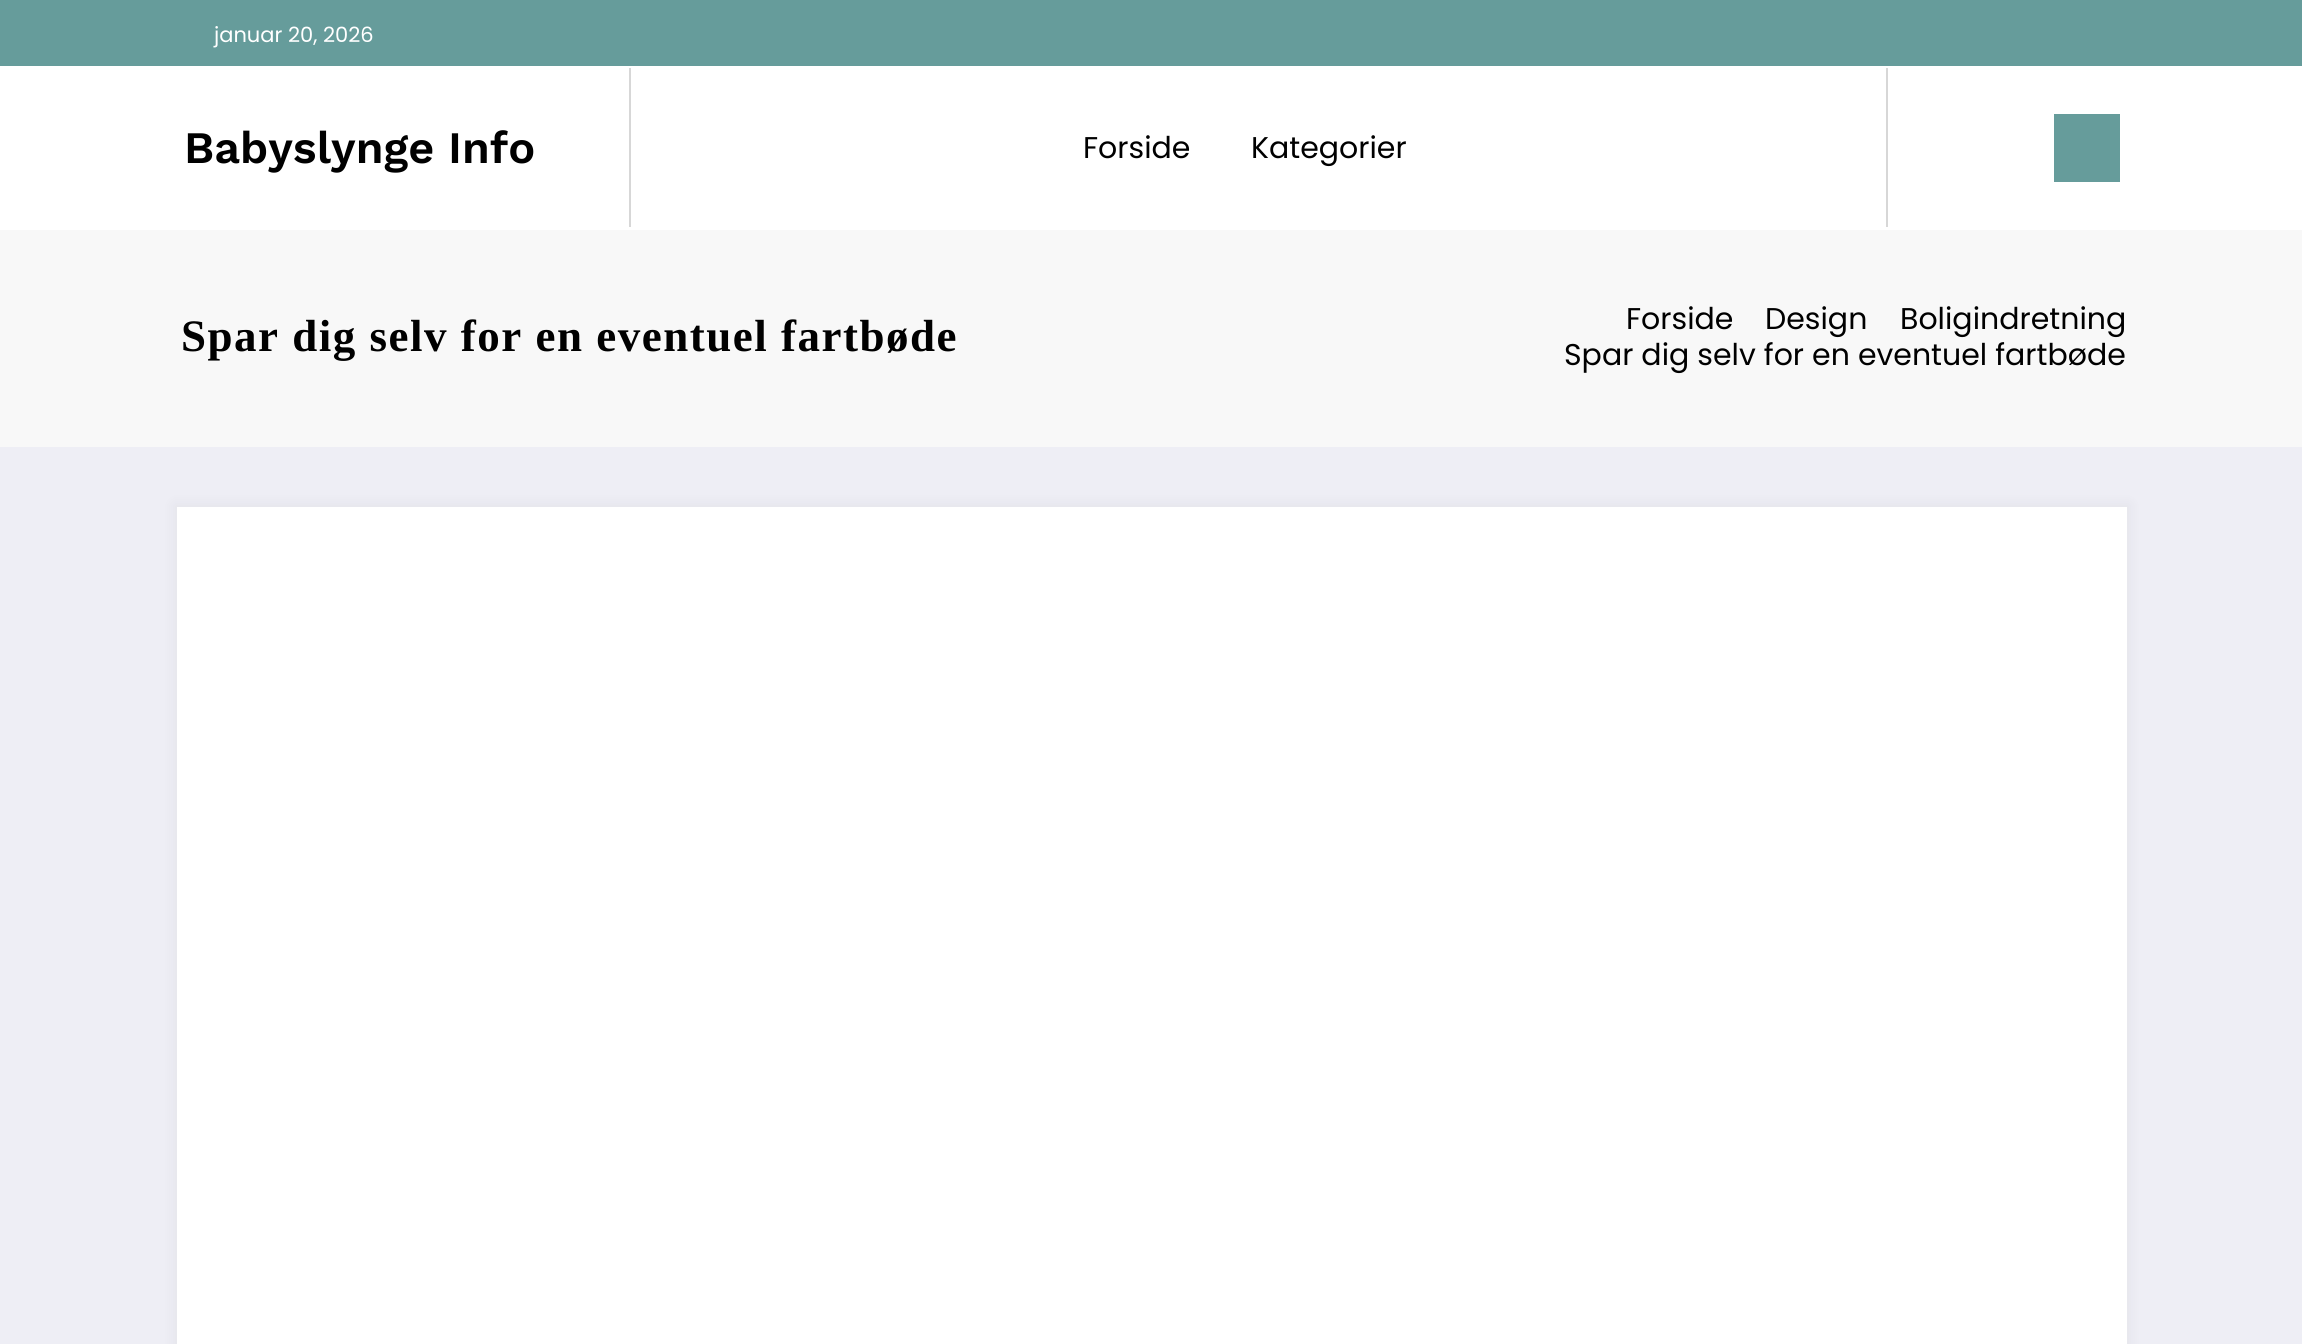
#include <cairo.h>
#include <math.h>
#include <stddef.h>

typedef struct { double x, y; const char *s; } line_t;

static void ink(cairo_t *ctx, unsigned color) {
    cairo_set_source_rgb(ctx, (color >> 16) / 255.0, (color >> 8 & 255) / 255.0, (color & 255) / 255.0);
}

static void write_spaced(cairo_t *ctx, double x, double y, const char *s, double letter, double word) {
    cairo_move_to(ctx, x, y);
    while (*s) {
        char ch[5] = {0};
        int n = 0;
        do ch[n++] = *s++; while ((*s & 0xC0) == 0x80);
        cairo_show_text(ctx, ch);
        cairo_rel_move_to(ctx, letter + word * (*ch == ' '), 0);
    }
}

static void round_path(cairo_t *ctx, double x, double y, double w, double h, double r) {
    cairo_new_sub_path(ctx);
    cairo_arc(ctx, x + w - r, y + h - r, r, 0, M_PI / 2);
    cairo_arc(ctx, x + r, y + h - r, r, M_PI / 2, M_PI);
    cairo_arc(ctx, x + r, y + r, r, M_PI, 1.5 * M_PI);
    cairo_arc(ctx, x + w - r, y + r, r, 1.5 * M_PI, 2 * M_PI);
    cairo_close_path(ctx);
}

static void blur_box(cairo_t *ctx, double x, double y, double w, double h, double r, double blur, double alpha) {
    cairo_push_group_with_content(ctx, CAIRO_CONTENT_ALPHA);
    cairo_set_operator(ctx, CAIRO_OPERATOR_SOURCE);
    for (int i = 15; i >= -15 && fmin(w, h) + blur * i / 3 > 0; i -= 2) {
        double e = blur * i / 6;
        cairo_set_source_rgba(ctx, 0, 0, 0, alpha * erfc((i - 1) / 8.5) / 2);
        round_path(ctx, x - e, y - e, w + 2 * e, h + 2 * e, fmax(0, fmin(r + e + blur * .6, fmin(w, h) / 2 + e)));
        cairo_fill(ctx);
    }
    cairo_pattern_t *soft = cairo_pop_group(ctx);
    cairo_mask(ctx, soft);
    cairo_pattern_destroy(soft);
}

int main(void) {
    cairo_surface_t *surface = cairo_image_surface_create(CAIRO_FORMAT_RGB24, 2302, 1344);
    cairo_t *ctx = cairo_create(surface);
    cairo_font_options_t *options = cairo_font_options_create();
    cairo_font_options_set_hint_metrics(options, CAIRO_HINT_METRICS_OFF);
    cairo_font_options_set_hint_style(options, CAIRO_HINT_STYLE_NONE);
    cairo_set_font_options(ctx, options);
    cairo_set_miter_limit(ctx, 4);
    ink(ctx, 0xEEEEF5);
    cairo_paint(ctx);
    ink(ctx, 0x669C9B);
    cairo_rectangle(ctx, 0, 0, 2302, 66);
    cairo_fill(ctx);
    cairo_select_font_face(ctx, "Poppins", CAIRO_FONT_SLANT_NORMAL, CAIRO_FONT_WEIGHT_NORMAL);
    cairo_set_font_size(ctx, 21);
    ink(ctx, 0xFFFFFF);
    cairo_move_to(ctx, 214, 42);
    cairo_show_text(ctx, "januar 20, 2026");
    cairo_rectangle(ctx, 0, 66, 2302, 164);
    cairo_fill(ctx);
    cairo_select_font_face(ctx, "Work Sans SemiBold", CAIRO_FONT_SLANT_NORMAL, CAIRO_FONT_WEIGHT_NORMAL);
    cairo_set_font_size(ctx, 45);
    ink(ctx, 0x000000);
    cairo_move_to(ctx, 184, 163);
    cairo_show_text(ctx, "Babyslynge Info");
    ink(ctx, 0xD7D7D7);
    cairo_rectangle(ctx, 1886, 68, 2, 159);
    cairo_fill(ctx);
    cairo_rectangle(ctx, 629, 68, 2, 159);
    cairo_fill(ctx);
    cairo_select_font_face(ctx, "Poppins", CAIRO_FONT_SLANT_NORMAL, CAIRO_FONT_WEIGHT_NORMAL);
    cairo_set_font_size(ctx, 30);
    ink(ctx, 0x000000);
    cairo_move_to(ctx, 1083, 158);
    cairo_show_text(ctx, "Forside");
    cairo_move_to(ctx, 1251, 158);
    cairo_show_text(ctx, "Kategorier");
    ink(ctx, 0x669C9B);
    cairo_rectangle(ctx, 2054, 114, 66, 68);
    cairo_fill(ctx);
    ink(ctx, 0xF8F8F8);
    cairo_rectangle(ctx, 0, 230, 2302, 217);
    cairo_fill(ctx);
    cairo_select_font_face(ctx, "Liberation Serif", CAIRO_FONT_SLANT_NORMAL, CAIRO_FONT_WEIGHT_BOLD);
    cairo_set_font_size(ctx, 45);
    ink(ctx, 0x000000);
    write_spaced(ctx, 181, 351, "Spar dig selv for en eventuel fartbøde", 1.5, 0);
    cairo_select_font_face(ctx, "Poppins", CAIRO_FONT_SLANT_NORMAL, CAIRO_FONT_WEIGHT_NORMAL);
    cairo_set_font_size(ctx, 30);
    {
        static const line_t items[] = {
            {1626, 329, "Forside"},
            {1765, 329, "Design"},
            {1900, 329, "Boligindretning"},
            {1564, 365, "Spar dig selv for en eventuel fartbøde"},
        };
        for (size_t i = 0; i < sizeof items / sizeof *items; i++) {
            cairo_move_to(ctx, items[i].x, items[i].y);
            cairo_show_text(ctx, items[i].s);
        }
    }
    ink(ctx, 0x171723);
    blur_box(ctx, 174, 504, 1956, 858, 0, 6, 0.05);
    ink(ctx, 0xFFFFFF);
    cairo_rectangle(ctx, 177, 507, 1950, 837);
    cairo_fill(ctx);
    cairo_surface_write_to_png(surface, "image.png");
    cairo_font_options_destroy(options);
    cairo_destroy(ctx);
    cairo_surface_destroy(surface);
    return 0;
}
